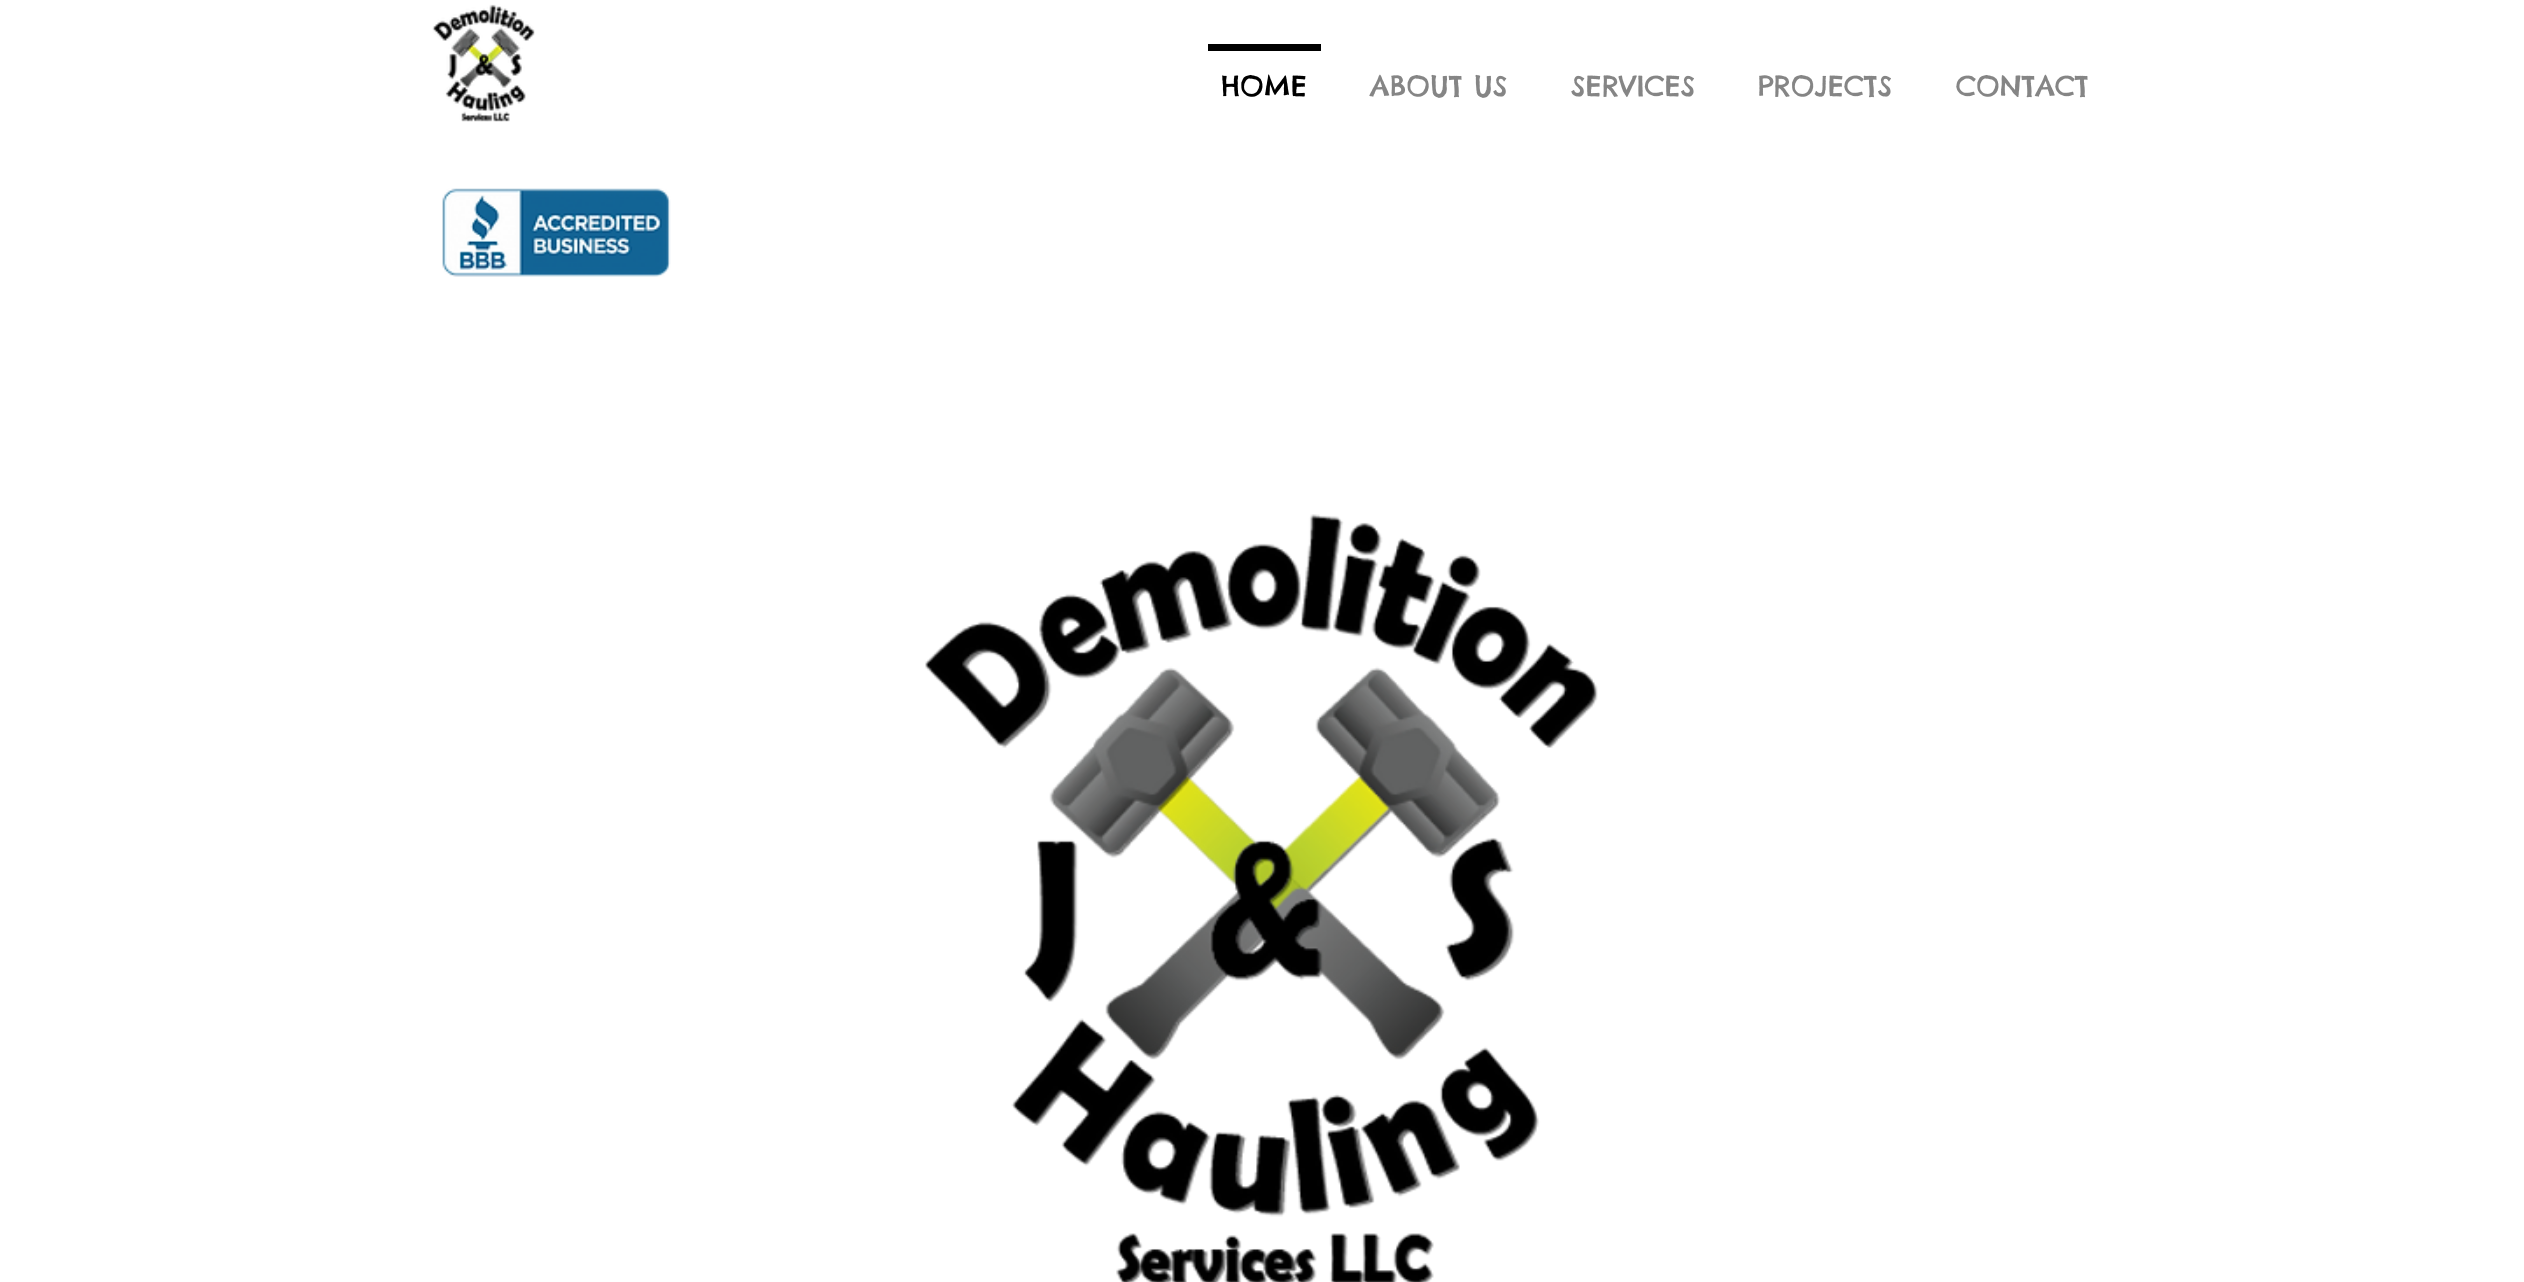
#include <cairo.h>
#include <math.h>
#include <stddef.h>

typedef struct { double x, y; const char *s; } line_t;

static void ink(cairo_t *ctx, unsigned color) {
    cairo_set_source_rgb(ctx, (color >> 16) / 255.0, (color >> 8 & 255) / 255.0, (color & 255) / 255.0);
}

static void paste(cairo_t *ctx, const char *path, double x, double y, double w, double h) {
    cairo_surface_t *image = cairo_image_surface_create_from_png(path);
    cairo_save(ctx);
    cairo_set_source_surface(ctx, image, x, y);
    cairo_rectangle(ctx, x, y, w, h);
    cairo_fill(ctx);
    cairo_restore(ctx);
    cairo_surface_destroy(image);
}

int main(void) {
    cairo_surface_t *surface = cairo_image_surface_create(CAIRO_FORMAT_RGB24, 2524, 1282);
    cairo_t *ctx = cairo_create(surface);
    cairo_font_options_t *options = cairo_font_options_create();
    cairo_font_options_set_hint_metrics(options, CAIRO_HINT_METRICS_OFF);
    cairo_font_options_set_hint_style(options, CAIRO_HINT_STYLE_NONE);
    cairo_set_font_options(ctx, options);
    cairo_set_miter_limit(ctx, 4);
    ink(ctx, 0xFFFFFF);
    cairo_paint(ctx);
    paste(ctx, "media/1.png", 432, 4, 103, 118);
    ink(ctx, 0x000000);
    cairo_rectangle(ctx, 1208, 44, 113, 7);
    cairo_fill(ctx);
    cairo_select_font_face(ctx, "Chelsea Market", CAIRO_FONT_SLANT_NORMAL, CAIRO_FONT_WEIGHT_NORMAL);
    cairo_set_font_size(ctx, 28);
    cairo_move_to(ctx, 1221, 96);
    cairo_show_text(ctx, "HOME");
    ink(ctx, 0x858585);
    {
        static const line_t items[] = {
            {1370, 96, "ABOUT US"},
            {1571, 96, "SERVICES"},
            {1758, 96, "PROJECTS"},
            {1956, 96, "CONTACT"},
        };
        for (size_t i = 0; i < sizeof items / sizeof *items; i++) {
            cairo_move_to(ctx, items[i].x, items[i].y);
            cairo_show_text(ctx, items[i].s);
        }
    }
    paste(ctx, "media/2.png", 442, 188, 229, 89);
    paste(ctx, "media/3.png", 925, 514, 673, 768);
    cairo_surface_write_to_png(surface, "image.png");
    cairo_font_options_destroy(options);
    cairo_destroy(ctx);
    cairo_surface_destroy(surface);
    return 0;
}
